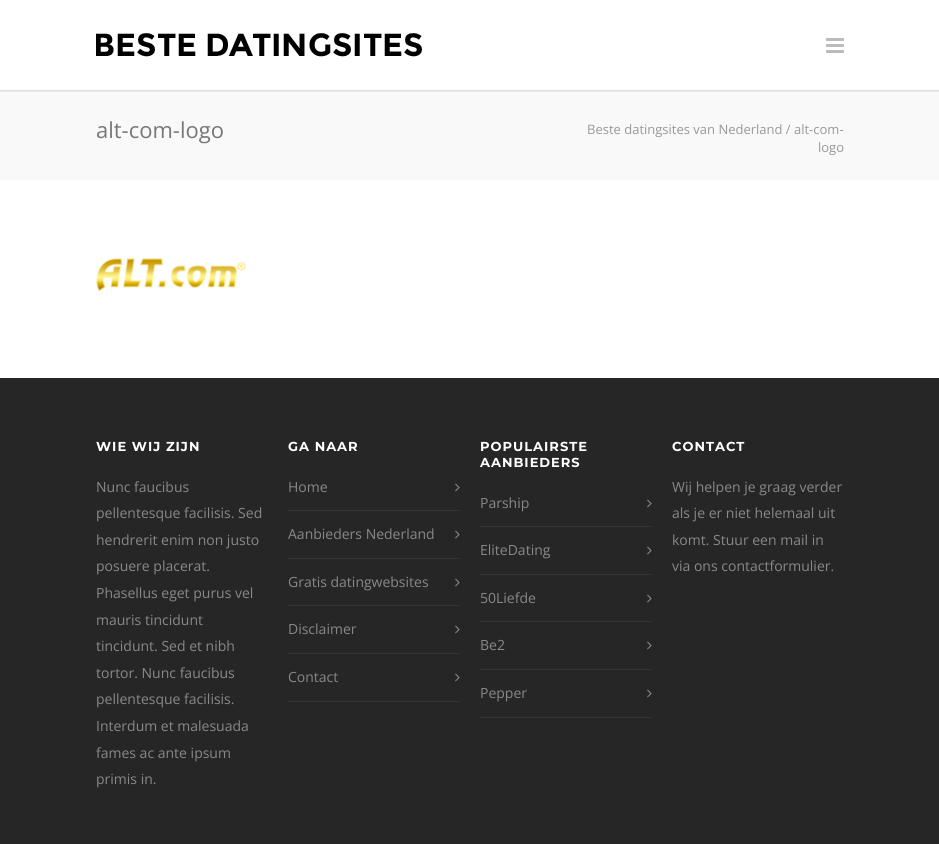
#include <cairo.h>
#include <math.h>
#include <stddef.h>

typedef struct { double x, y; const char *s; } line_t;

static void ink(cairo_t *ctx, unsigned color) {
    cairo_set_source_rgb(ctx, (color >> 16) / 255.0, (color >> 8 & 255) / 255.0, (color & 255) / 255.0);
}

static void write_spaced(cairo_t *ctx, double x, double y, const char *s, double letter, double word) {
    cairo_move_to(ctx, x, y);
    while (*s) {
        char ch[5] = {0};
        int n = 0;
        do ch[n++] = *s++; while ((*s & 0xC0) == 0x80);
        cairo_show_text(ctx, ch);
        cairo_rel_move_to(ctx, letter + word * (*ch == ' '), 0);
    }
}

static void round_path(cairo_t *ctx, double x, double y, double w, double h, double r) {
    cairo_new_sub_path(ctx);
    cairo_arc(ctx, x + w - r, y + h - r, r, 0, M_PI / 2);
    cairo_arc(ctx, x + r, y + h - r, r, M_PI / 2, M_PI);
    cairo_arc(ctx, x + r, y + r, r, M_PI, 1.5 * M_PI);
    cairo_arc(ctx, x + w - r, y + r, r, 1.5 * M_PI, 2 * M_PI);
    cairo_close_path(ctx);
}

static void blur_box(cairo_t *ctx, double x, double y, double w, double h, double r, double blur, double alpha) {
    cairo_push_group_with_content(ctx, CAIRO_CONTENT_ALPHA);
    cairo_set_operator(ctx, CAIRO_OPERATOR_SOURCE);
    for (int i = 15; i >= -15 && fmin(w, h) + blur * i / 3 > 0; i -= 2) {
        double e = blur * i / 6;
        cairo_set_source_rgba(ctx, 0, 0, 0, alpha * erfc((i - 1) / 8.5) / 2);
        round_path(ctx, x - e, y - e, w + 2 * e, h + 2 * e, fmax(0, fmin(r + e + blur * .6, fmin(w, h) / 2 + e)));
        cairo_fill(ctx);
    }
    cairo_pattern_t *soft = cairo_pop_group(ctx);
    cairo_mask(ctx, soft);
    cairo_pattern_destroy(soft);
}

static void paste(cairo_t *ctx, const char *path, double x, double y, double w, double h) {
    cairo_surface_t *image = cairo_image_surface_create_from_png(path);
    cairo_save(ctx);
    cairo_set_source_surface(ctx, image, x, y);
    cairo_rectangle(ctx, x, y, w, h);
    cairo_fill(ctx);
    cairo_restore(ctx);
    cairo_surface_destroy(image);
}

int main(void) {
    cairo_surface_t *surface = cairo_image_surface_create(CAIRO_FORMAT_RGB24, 939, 844);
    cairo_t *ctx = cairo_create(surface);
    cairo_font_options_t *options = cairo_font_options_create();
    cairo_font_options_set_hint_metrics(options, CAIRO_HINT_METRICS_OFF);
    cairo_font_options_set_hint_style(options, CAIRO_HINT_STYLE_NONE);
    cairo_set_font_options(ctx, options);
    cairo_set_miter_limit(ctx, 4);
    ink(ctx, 0xFFFFFF);
    cairo_paint(ctx);
    ink(ctx, 0xF9F9F9);
    cairo_rectangle(ctx, 0, 90, 939, 90);
    cairo_fill(ctx);
    cairo_save(ctx);
    cairo_rectangle(ctx, 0, 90, 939, 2);
    cairo_clip(ctx);
    ink(ctx, 0x000000);
    blur_box(ctx, -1, -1, 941, 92, 0, 1, 0.16);
    cairo_restore(ctx);
    paste(ctx, "media/1.png", 96, 33, 326, 24);
    paste(ctx, "media/2.png", 826, 38, 18, 15);
    cairo_select_font_face(ctx, "Open Sans", CAIRO_FONT_SLANT_NORMAL, CAIRO_FONT_WEIGHT_NORMAL);
    cairo_set_font_size(ctx, 22);
    ink(ctx, 0x777777);
    cairo_move_to(ctx, 96, 138);
    cairo_show_text(ctx, "alt-com-logo");
    cairo_set_font_size(ctx, 13);
    ink(ctx, 0x999999);
    cairo_move_to(ctx, 587, 134);
    cairo_show_text(ctx, "Beste datingsites van Nederland / alt-com-");
    cairo_move_to(ctx, 818, 152);
    cairo_show_text(ctx, "logo");
    paste(ctx, "media/3.png", 96, 258, 150, 33);
    ink(ctx, 0x262626);
    cairo_rectangle(ctx, 0, 378, 939, 466);
    cairo_fill(ctx);
    cairo_select_font_face(ctx, "Montserrat", CAIRO_FONT_SLANT_NORMAL, CAIRO_FONT_WEIGHT_BOLD);
    ink(ctx, 0xFFFFFF);
    write_spaced(ctx, 96, 451, "WIE WIJ ZIJN", 1, 0);
    cairo_select_font_face(ctx, "Open Sans", CAIRO_FONT_SLANT_NORMAL, CAIRO_FONT_WEIGHT_NORMAL);
    cairo_set_font_size(ctx, 14);
    ink(ctx, 0x888888);
    {
        static const line_t items[] = {
            {96, 492, "Nunc faucibus"},
            {96, 518, "pellentesque facilisis. Sed"},
            {96, 545, "hendrerit enim non justo"},
            {96, 571, "posuere placerat."},
            {96, 598, "Phasellus eget purus vel"},
            {96, 625, "mauris tincidunt"},
            {96, 651, "tincidunt. Sed et nibh"},
            {96, 678, "tortor. Nunc faucibus"},
            {96, 704, "pellentesque facilisis."},
            {96, 731, "Interdum et malesuada"},
            {96, 758, "fames ac ante ipsum"},
            {96, 784, "primis in."},
        };
        for (size_t i = 0; i < sizeof items / sizeof *items; i++) {
            cairo_move_to(ctx, items[i].x, items[i].y);
            cairo_show_text(ctx, items[i].s);
        }
    }
    cairo_select_font_face(ctx, "Montserrat", CAIRO_FONT_SLANT_NORMAL, CAIRO_FONT_WEIGHT_BOLD);
    cairo_set_font_size(ctx, 13);
    ink(ctx, 0xFFFFFF);
    write_spaced(ctx, 288, 451, "GA NAAR", 1, 0);
    ink(ctx, 0x333333);
    cairo_rectangle(ctx, 288, 510, 172, 1);
    cairo_fill(ctx);
    cairo_select_font_face(ctx, "Open Sans", CAIRO_FONT_SLANT_NORMAL, CAIRO_FONT_WEIGHT_NORMAL);
    cairo_set_font_size(ctx, 14);
    ink(ctx, 0x888888);
    cairo_move_to(ctx, 288, 492);
    cairo_show_text(ctx, "Home");
    paste(ctx, "media/4.png", 455, 483, 5, 9);
    ink(ctx, 0x333333);
    cairo_rectangle(ctx, 288, 558, 172, 1);
    cairo_fill(ctx);
    ink(ctx, 0x888888);
    cairo_move_to(ctx, 288, 539);
    cairo_show_text(ctx, "Aanbieders Nederland");
    paste(ctx, "media/4.png", 455, 530, 5, 9);
    ink(ctx, 0x333333);
    cairo_rectangle(ctx, 288, 605, 172, 1);
    cairo_fill(ctx);
    ink(ctx, 0x888888);
    cairo_move_to(ctx, 288, 587);
    cairo_show_text(ctx, "Gratis datingwebsites");
    paste(ctx, "media/4.png", 455, 578, 5, 9);
    ink(ctx, 0x333333);
    cairo_rectangle(ctx, 288, 653, 172, 1);
    cairo_fill(ctx);
    ink(ctx, 0x888888);
    cairo_move_to(ctx, 288, 634);
    cairo_show_text(ctx, "Disclaimer");
    paste(ctx, "media/4.png", 455, 625, 5, 9);
    ink(ctx, 0x333333);
    cairo_rectangle(ctx, 288, 701, 172, 1);
    cairo_fill(ctx);
    ink(ctx, 0x888888);
    cairo_move_to(ctx, 288, 682);
    cairo_show_text(ctx, "Contact");
    paste(ctx, "media/4.png", 455, 673, 5, 9);
    cairo_select_font_face(ctx, "Montserrat", CAIRO_FONT_SLANT_NORMAL, CAIRO_FONT_WEIGHT_BOLD);
    cairo_set_font_size(ctx, 13);
    ink(ctx, 0xFFFFFF);
    write_spaced(ctx, 480, 451, "POPULAIRSTE", 1, 0);
    write_spaced(ctx, 480, 467, "AANBIEDERS", 1, 0);
    ink(ctx, 0x333333);
    cairo_rectangle(ctx, 480, 526, 172, 1);
    cairo_fill(ctx);
    cairo_select_font_face(ctx, "Open Sans", CAIRO_FONT_SLANT_NORMAL, CAIRO_FONT_WEIGHT_NORMAL);
    cairo_set_font_size(ctx, 14);
    ink(ctx, 0x888888);
    cairo_move_to(ctx, 480, 508);
    cairo_show_text(ctx, "Parship");
    paste(ctx, "media/4.png", 647, 499, 5, 9);
    ink(ctx, 0x333333);
    cairo_rectangle(ctx, 480, 574, 172, 1);
    cairo_fill(ctx);
    ink(ctx, 0x888888);
    cairo_move_to(ctx, 480, 555);
    cairo_show_text(ctx, "EliteDating");
    paste(ctx, "media/4.png", 647, 546, 5, 9);
    ink(ctx, 0x333333);
    cairo_rectangle(ctx, 480, 621, 172, 1);
    cairo_fill(ctx);
    ink(ctx, 0x888888);
    cairo_move_to(ctx, 480, 603);
    cairo_show_text(ctx, "50Liefde");
    paste(ctx, "media/4.png", 647, 594, 5, 9);
    ink(ctx, 0x333333);
    cairo_rectangle(ctx, 480, 669, 172, 1);
    cairo_fill(ctx);
    ink(ctx, 0x888888);
    cairo_move_to(ctx, 480, 650);
    cairo_show_text(ctx, "Be2");
    paste(ctx, "media/4.png", 647, 641, 5, 9);
    ink(ctx, 0x333333);
    cairo_rectangle(ctx, 480, 717, 172, 1);
    cairo_fill(ctx);
    ink(ctx, 0x888888);
    cairo_move_to(ctx, 480, 698);
    cairo_show_text(ctx, "Pepper");
    paste(ctx, "media/4.png", 647, 689, 5, 9);
    cairo_select_font_face(ctx, "Montserrat", CAIRO_FONT_SLANT_NORMAL, CAIRO_FONT_WEIGHT_BOLD);
    cairo_set_font_size(ctx, 13);
    ink(ctx, 0xFFFFFF);
    write_spaced(ctx, 672, 451, "CONTACT", 1, 0);
    cairo_select_font_face(ctx, "Open Sans", CAIRO_FONT_SLANT_NORMAL, CAIRO_FONT_WEIGHT_NORMAL);
    cairo_set_font_size(ctx, 14);
    ink(ctx, 0x888888);
    {
        static const line_t items[] = {
            {672, 492, "Wij helpen je graag verder"},
            {672, 518, "als je er niet helemaal uit"},
            {672, 545, "komt. Stuur een mail in"},
            {672, 571, "via ons contactformulier."},
        };
        for (size_t i = 0; i < sizeof items / sizeof *items; i++) {
            cairo_move_to(ctx, items[i].x, items[i].y);
            cairo_show_text(ctx, items[i].s);
        }
    }
    cairo_surface_write_to_png(surface, "image.png");
    cairo_font_options_destroy(options);
    cairo_destroy(ctx);
    cairo_surface_destroy(surface);
    return 0;
}
